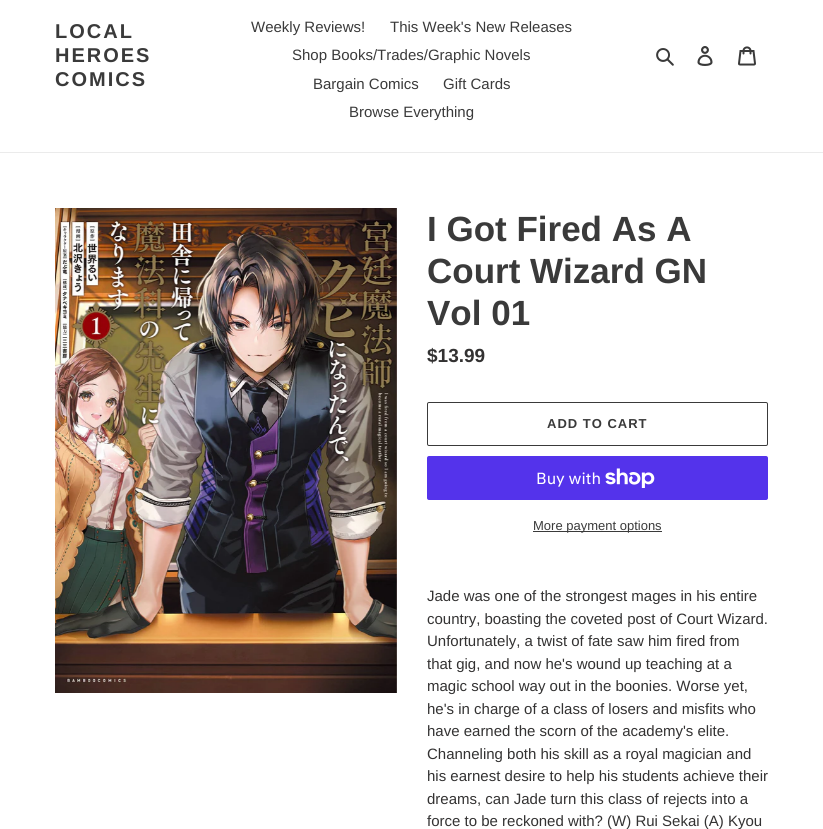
#include <cairo.h>
#include <math.h>
#include <stddef.h>

typedef struct { double x, y; const char *s; } line_t;

static void ink(cairo_t *ctx, unsigned color) {
    cairo_set_source_rgb(ctx, (color >> 16) / 255.0, (color >> 8 & 255) / 255.0, (color & 255) / 255.0);
}

static void write_spaced(cairo_t *ctx, double x, double y, const char *s, double letter, double word) {
    cairo_move_to(ctx, x, y);
    while (*s) {
        char ch[5] = {0};
        int n = 0;
        do ch[n++] = *s++; while ((*s & 0xC0) == 0x80);
        cairo_show_text(ctx, ch);
        cairo_rel_move_to(ctx, letter + word * (*ch == ' '), 0);
    }
}

static void round_path(cairo_t *ctx, double x, double y, double w, double h, double r) {
    cairo_new_sub_path(ctx);
    cairo_arc(ctx, x + w - r, y + h - r, r, 0, M_PI / 2);
    cairo_arc(ctx, x + r, y + h - r, r, M_PI / 2, M_PI);
    cairo_arc(ctx, x + r, y + r, r, M_PI, 1.5 * M_PI);
    cairo_arc(ctx, x + w - r, y + r, r, 1.5 * M_PI, 2 * M_PI);
    cairo_close_path(ctx);
}

static void paste(cairo_t *ctx, const char *path, double x, double y, double w, double h) {
    cairo_surface_t *image = cairo_image_surface_create_from_png(path);
    cairo_save(ctx);
    cairo_set_source_surface(ctx, image, x, y);
    cairo_rectangle(ctx, x, y, w, h);
    cairo_fill(ctx);
    cairo_restore(ctx);
    cairo_surface_destroy(image);
}

int main(void) {
    cairo_surface_t *surface = cairo_image_surface_create(CAIRO_FORMAT_RGB24, 823, 829);
    cairo_t *ctx = cairo_create(surface);
    cairo_font_options_t *options = cairo_font_options_create();
    cairo_font_options_set_hint_metrics(options, CAIRO_HINT_METRICS_OFF);
    cairo_font_options_set_hint_style(options, CAIRO_HINT_STYLE_NONE);
    cairo_set_font_options(ctx, options);
    cairo_set_miter_limit(ctx, 4);
    ink(ctx, 0xFFFFFF);
    cairo_paint(ctx);
    ink(ctx, 0xEBEBEB);
    cairo_rectangle(ctx, 0, 152, 823, 1);
    cairo_fill(ctx);
    cairo_select_font_face(ctx, "Liberation Sans", CAIRO_FONT_SLANT_NORMAL, CAIRO_FONT_WEIGHT_BOLD);
    cairo_set_font_size(ctx, 20);
    ink(ctx, 0x3A3A3A);
    {
        static const line_t items[] = {
            {55, 38, "LOCAL"},
            {55, 62, "HEROES"},
            {55, 86, "COMICS"},
        };
        for (size_t i = 0; i < sizeof items / sizeof *items; i++) {
            write_spaced(ctx, items[i].x, items[i].y, items[i].s, 2, 0);
        }
    }
    cairo_select_font_face(ctx, "Liberation Sans", CAIRO_FONT_SLANT_NORMAL, CAIRO_FONT_WEIGHT_NORMAL);
    cairo_set_font_size(ctx, 15);
    {
        static const line_t items[] = {
            {251, 32, "Weekly Reviews!"},
            {390, 32, "This Week's New Releases"},
            {292, 60, "Shop Books/Trades/Graphic Novels"},
            {313, 89, "Bargain Comics"},
            {443, 89, "Gift Cards"},
            {349, 117, "Browse Everything"},
        };
        for (size_t i = 0; i < sizeof items / sizeof *items; i++) {
            cairo_move_to(ctx, items[i].x, items[i].y);
            cairo_show_text(ctx, items[i].s);
        }
    }
    paste(ctx, "media/1.png", 656, 48, 18, 18);
    paste(ctx, "media/2.png", 697, 46, 16, 20);
    paste(ctx, "media/3.png", 738, 46, 18, 20);
    paste(ctx, "media/4.png", 55, 208, 342, 485);
    cairo_select_font_face(ctx, "Liberation Sans", CAIRO_FONT_SLANT_NORMAL, CAIRO_FONT_WEIGHT_BOLD);
    cairo_set_font_size(ctx, 35);
    {
        static const line_t items[] = {
            {427, 241, "I Got Fired As A"},
            {427, 283, "Court Wizard GN"},
            {427, 325, "Vol 01"},
        };
        for (size_t i = 0; i < sizeof items / sizeof *items; i++) {
            cairo_move_to(ctx, items[i].x, items[i].y);
            cairo_show_text(ctx, items[i].s);
        }
    }
    cairo_set_font_size(ctx, 19);
    ink(ctx, 0x333232);
    cairo_move_to(ctx, 427, 362);
    cairo_show_text(ctx, "$13.99");
    round_path(ctx, 427.5, 402.5, 340, 43, 1.5);
    ink(ctx, 0x3A3A3A);
    cairo_set_line_width(ctx, 1);
    cairo_stroke(ctx);
    cairo_set_font_size(ctx, 13);
    write_spaced(ctx, 547, 428, "ADD TO CART", 1, 0);
    ink(ctx, 0x5433EB);
    round_path(ctx, 427, 456, 341, 44, 2);
    cairo_fill(ctx);
    cairo_select_font_face(ctx, "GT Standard", CAIRO_FONT_SLANT_NORMAL, CAIRO_FONT_WEIGHT_NORMAL);
    cairo_set_font_size(ctx, 16);
    ink(ctx, 0xFFFFFF);
    cairo_move_to(ctx, 536, 484);
    cairo_show_text(ctx, "Buy with");
    paste(ctx, "media/5.png", 605, 468, 50, 20);
    ink(ctx, 0x3A3A3A);
    cairo_rectangle(ctx, 533, 531, 129, 1);
    cairo_fill(ctx);
    cairo_select_font_face(ctx, "Liberation Sans", CAIRO_FONT_SLANT_NORMAL, CAIRO_FONT_WEIGHT_NORMAL);
    cairo_set_font_size(ctx, 13);
    cairo_move_to(ctx, 533, 530);
    cairo_show_text(ctx, "More payment options");
    cairo_set_font_size(ctx, 15);
    ink(ctx, 0x333232);
    {
        static const line_t items[] = {
            {427, 601, "Jade was one of the strongest mages in his entire"},
            {427, 624, "country, boasting the coveted post of Court Wizard."},
            {427, 646, "Unfortunately, a twist of fate saw him fired from"},
            {427, 669, "that gig, and now he's wound up teaching at a"},
            {427, 691, "magic school way out in the boonies. Worse yet,"},
            {427, 714, "he's in charge of a class of losers and misfits who"},
            {427, 736, "have earned the scorn of the academy's elite."},
            {427, 759, "Channeling both his skill as a royal magician and"},
            {427, 781, "his earnest desire to help his students achieve their"},
            {427, 804, "dreams, can Jade turn this class of rejects into a"},
            {427, 826, "force to be reckoned with? (W) Rui Sekai (A) Kyou"},
        };
        for (size_t i = 0; i < sizeof items / sizeof *items; i++) {
            cairo_move_to(ctx, items[i].x, items[i].y);
            cairo_show_text(ctx, items[i].s);
        }
    }
    cairo_surface_write_to_png(surface, "image.png");
    cairo_font_options_destroy(options);
    cairo_destroy(ctx);
    cairo_surface_destroy(surface);
    return 0;
}
